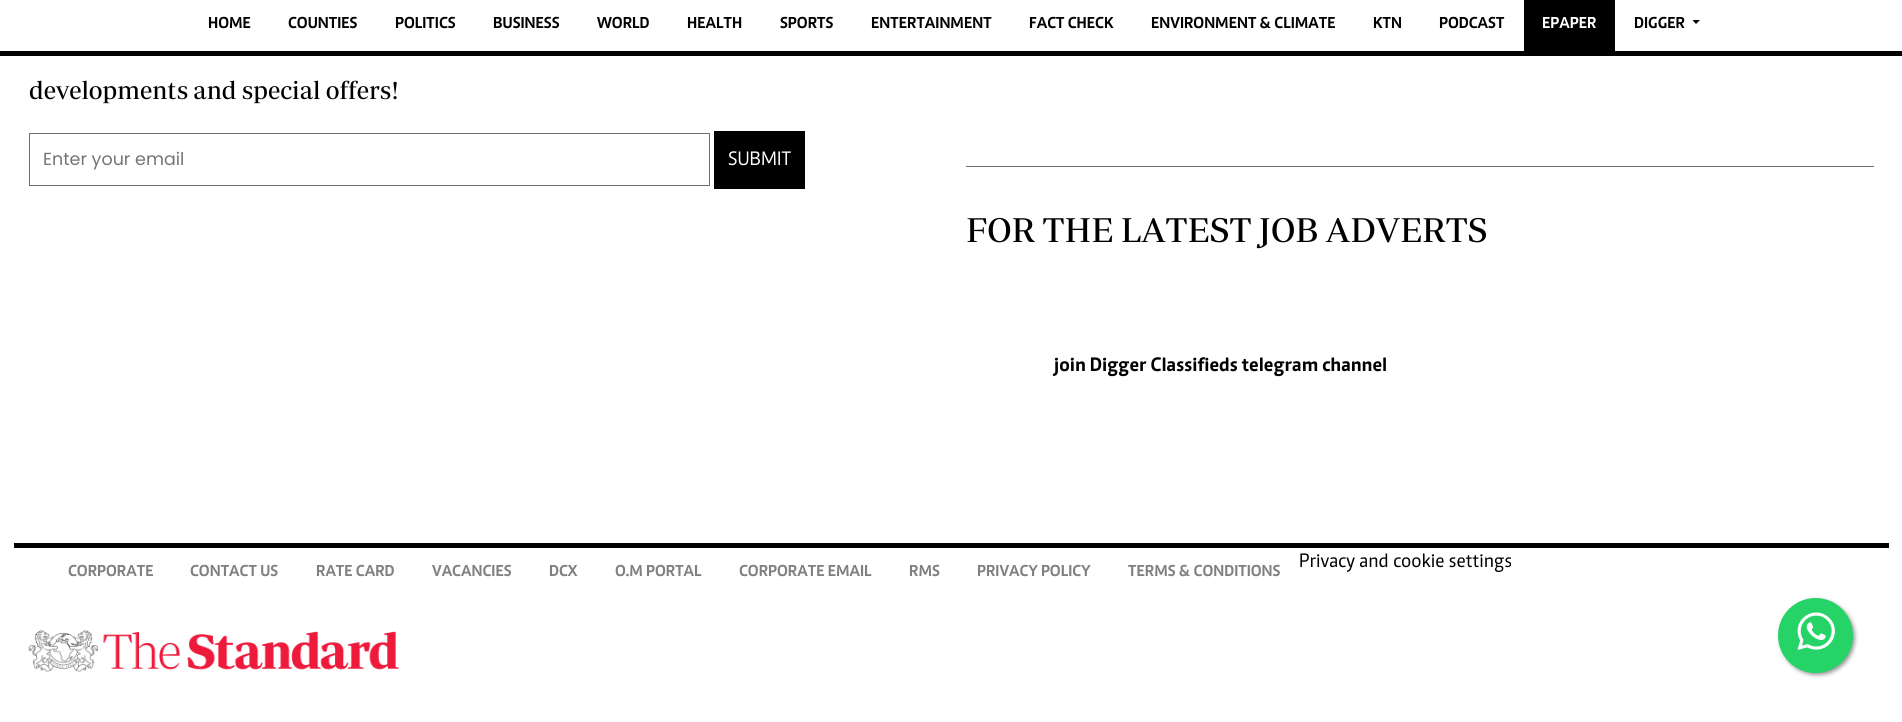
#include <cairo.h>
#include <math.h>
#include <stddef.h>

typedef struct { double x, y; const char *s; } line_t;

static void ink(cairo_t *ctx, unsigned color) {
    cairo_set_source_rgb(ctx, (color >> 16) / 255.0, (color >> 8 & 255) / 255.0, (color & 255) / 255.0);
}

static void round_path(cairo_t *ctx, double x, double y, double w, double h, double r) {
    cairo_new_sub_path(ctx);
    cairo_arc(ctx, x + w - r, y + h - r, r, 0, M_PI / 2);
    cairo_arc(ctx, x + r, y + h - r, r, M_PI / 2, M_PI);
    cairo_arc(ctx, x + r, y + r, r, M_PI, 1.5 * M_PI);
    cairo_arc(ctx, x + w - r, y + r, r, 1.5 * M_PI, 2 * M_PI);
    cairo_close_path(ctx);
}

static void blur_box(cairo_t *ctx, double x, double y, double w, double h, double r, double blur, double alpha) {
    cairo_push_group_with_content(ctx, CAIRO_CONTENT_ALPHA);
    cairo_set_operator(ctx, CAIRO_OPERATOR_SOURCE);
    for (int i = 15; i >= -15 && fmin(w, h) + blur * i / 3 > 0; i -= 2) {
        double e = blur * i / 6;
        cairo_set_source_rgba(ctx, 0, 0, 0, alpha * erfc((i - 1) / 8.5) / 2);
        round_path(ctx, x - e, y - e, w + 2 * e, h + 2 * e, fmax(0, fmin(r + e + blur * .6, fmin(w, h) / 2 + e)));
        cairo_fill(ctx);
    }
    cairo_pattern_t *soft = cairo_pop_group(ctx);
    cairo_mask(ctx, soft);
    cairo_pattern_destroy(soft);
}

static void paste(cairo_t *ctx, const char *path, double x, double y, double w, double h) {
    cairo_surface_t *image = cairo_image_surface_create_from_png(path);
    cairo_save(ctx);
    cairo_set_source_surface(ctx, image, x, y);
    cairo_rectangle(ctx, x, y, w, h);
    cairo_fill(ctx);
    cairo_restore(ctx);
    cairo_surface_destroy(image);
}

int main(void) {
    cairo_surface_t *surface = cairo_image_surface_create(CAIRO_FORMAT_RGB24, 1902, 722);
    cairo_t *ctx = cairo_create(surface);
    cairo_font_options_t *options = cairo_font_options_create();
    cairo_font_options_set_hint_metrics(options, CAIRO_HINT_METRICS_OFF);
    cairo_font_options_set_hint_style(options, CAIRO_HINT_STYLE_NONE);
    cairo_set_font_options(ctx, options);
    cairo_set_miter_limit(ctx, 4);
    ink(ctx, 0xFFFFFF);
    cairo_paint(ctx);
    ink(ctx, 0x000000);
    cairo_rectangle(ctx, 0, 51, 1902, 5);
    cairo_fill(ctx);
    cairo_select_font_face(ctx, "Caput", CAIRO_FONT_SLANT_NORMAL, CAIRO_FONT_WEIGHT_BOLD);
    cairo_set_font_size(ctx, 16.25);
    {
        static const line_t items[] = {
            {208, 28, "HOME"},
            {288, 28, "COUNTIES"},
            {395, 28, "POLITICS"},
            {493, 28, "BUSINESS"},
            {597, 28, "WORLD"},
            {687, 28, "HEALTH"},
            {780, 28, "SPORTS"},
            {871, 28, "ENTERTAINMENT"},
            {1029, 28, "FACT CHECK"},
            {1151, 28, "ENVIRONMENT & CLIMATE"},
            {1373, 28, "KTN"},
            {1439, 28, "PODCAST"},
        };
        for (size_t i = 0; i < sizeof items / sizeof *items; i++) {
            cairo_move_to(ctx, items[i].x, items[i].y);
            cairo_show_text(ctx, items[i].s);
        }
    }
    cairo_rectangle(ctx, 1524, 0, 91, 51);
    cairo_fill(ctx);
    ink(ctx, 0xFFFFFF);
    cairo_move_to(ctx, 1542, 28);
    cairo_show_text(ctx, "EPAPER");
    ink(ctx, 0x000000);
    cairo_move_to(ctx, 1634, 28);
    cairo_show_text(ctx, "DIGGER");
    cairo_new_path(ctx);
    cairo_move_to(ctx, 1692.5, 20);
    cairo_line_to(ctx, 1700, 20);
    cairo_line_to(ctx, 1696, 24);
    cairo_close_path(ctx);
    cairo_fill(ctx);
    cairo_select_font_face(ctx, "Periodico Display", CAIRO_FONT_SLANT_NORMAL, CAIRO_FONT_WEIGHT_NORMAL);
    cairo_set_font_size(ctx, 25);
    cairo_move_to(ctx, 29, 99);
    cairo_show_text(ctx, "developments and special offers!");
    cairo_rectangle(ctx, 29.5, 133.5, 680, 52);
    ink(ctx, 0x6E6D6D);
    cairo_set_line_width(ctx, 1);
    cairo_stroke(ctx);
    cairo_select_font_face(ctx, "Poppins", CAIRO_FONT_SLANT_NORMAL, CAIRO_FONT_WEIGHT_NORMAL);
    cairo_set_font_size(ctx, 17.5);
    ink(ctx, 0x757575);
    cairo_move_to(ctx, 43, 165);
    cairo_show_text(ctx, "Enter your email");
    ink(ctx, 0x000000);
    cairo_rectangle(ctx, 714, 131, 91, 58);
    cairo_fill(ctx);
    cairo_select_font_face(ctx, "Caput", CAIRO_FONT_SLANT_NORMAL, CAIRO_FONT_WEIGHT_NORMAL);
    cairo_set_font_size(ctx, 20);
    ink(ctx, 0xFFFFFF);
    cairo_move_to(ctx, 728, 165);
    cairo_show_text(ctx, "SUBMIT");
    ink(ctx, 0x6E6D6D);
    cairo_rectangle(ctx, 966, 166, 908, 1);
    cairo_fill(ctx);
    cairo_select_font_face(ctx, "Periodico Display", CAIRO_FONT_SLANT_NORMAL, CAIRO_FONT_WEIGHT_NORMAL);
    cairo_set_font_size(ctx, 35);
    ink(ctx, 0x000000);
    cairo_move_to(ctx, 966, 242);
    cairo_show_text(ctx, "FOR THE LATEST JOB ADVERTS");
    cairo_select_font_face(ctx, "Caput", CAIRO_FONT_SLANT_NORMAL, CAIRO_FONT_WEIGHT_BOLD);
    cairo_set_font_size(ctx, 20);
    cairo_move_to(ctx, 1054, 371);
    cairo_show_text(ctx, "join Digger Classifieds telegram channel");
    cairo_rectangle(ctx, 14, 543, 1875, 5);
    cairo_fill(ctx);
    cairo_set_font_size(ctx, 16.25);
    ink(ctx, 0x808080);
    {
        static const line_t items[] = {
            {68, 576, "CORPORATE"},
            {190, 576, "CONTACT US"},
            {316, 576, "RATE CARD"},
            {432, 576, "VACANCIES"},
            {549, 576, "DCX"},
            {615, 576, "O.M PORTAL"},
            {739, 576, "CORPORATE EMAIL"},
            {909, 576, "RMS"},
            {977, 576, "PRIVACY POLICY"},
            {1128, 576, "TERMS & CONDITIONS"},
        };
        for (size_t i = 0; i < sizeof items / sizeof *items; i++) {
            cairo_move_to(ctx, items[i].x, items[i].y);
            cairo_show_text(ctx, items[i].s);
        }
    }
    cairo_select_font_face(ctx, "Caput", CAIRO_FONT_SLANT_NORMAL, CAIRO_FONT_WEIGHT_NORMAL);
    cairo_set_font_size(ctx, 20);
    ink(ctx, 0x000000);
    cairo_move_to(ctx, 1299, 567);
    cairo_show_text(ctx, "Privacy and cookie settings");
    paste(ctx, "media/1.png", 28, 630, 371, 42);
    ink(ctx, 0x999999);
    blur_box(ctx, 1780, 600, 75, 75, 37.5, 2, 1);
    ink(ctx, 0x25D366);
    cairo_arc(ctx, 1815.5, 635.5, 37.5, 0, 2 * M_PI);
    cairo_fill(ctx);
    paste(ctx, "media/2.png", 1797, 612, 38, 38);
    cairo_surface_write_to_png(surface, "image.png");
    cairo_font_options_destroy(options);
    cairo_destroy(ctx);
    cairo_surface_destroy(surface);
    return 0;
}
